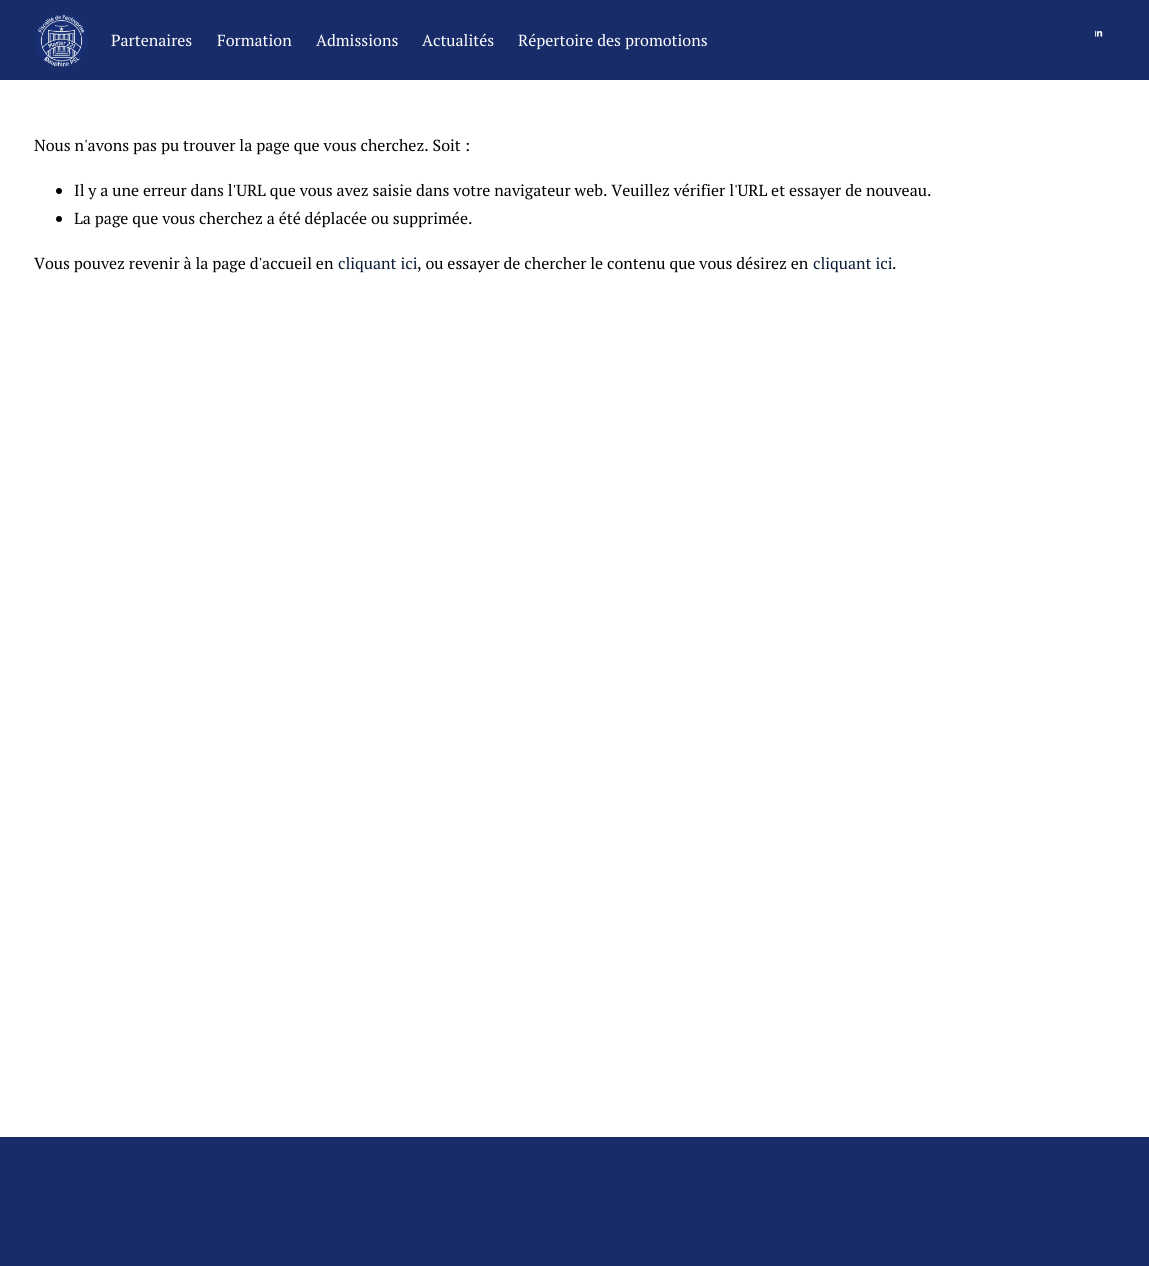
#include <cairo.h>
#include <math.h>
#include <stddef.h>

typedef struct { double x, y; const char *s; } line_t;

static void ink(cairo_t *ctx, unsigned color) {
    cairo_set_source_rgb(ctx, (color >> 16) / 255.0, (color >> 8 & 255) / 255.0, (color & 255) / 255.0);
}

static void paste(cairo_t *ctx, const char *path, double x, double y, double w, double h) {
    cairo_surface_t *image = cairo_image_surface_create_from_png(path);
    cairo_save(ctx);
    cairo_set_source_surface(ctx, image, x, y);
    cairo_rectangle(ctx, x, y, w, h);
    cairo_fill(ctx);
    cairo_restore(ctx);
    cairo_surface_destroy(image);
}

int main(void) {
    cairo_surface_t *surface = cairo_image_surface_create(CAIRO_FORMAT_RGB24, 1149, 1266);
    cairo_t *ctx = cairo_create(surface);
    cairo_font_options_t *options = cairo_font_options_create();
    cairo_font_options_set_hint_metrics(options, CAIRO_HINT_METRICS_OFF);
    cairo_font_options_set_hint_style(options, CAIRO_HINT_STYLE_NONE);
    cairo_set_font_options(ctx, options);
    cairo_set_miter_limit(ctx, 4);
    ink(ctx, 0xFFFFFF);
    cairo_paint(ctx);
    ink(ctx, 0x182C6A);
    cairo_rectangle(ctx, 0, 0, 1149, 80);
    cairo_fill(ctx);
    paste(ctx, "media/1.png", 35, 14, 53, 53);
    cairo_select_font_face(ctx, "PT Serif", CAIRO_FONT_SLANT_NORMAL, CAIRO_FONT_WEIGHT_NORMAL);
    cairo_set_font_size(ctx, 16);
    ink(ctx, 0xFFFFFF);
    {
        static const line_t items[] = {
            {111, 46, "Partenaires"},
            {217, 46, "Formation"},
            {316, 46, "Admissions"},
            {422, 46, "Actualités"},
            {518, 46, "Répertoire des promotions"},
        };
        for (size_t i = 0; i < sizeof items / sizeof *items; i++) {
            cairo_move_to(ctx, items[i].x, items[i].y);
            cairo_show_text(ctx, items[i].s);
        }
    }
    paste(ctx, "media/2.png", 1095, 30, 8, 7);
    ink(ctx, 0x000000);
    cairo_move_to(ctx, 34, 151);
    cairo_show_text(ctx, "Nous n'avons pas pu trouver la page que vous cherchez. Soit :");
    cairo_new_path(ctx);
    cairo_arc(ctx, 59, 191, 3, 0, 2 * M_PI);
    cairo_fill(ctx);
    cairo_move_to(ctx, 74, 196);
    cairo_show_text(ctx, "Il y a une erreur dans l'URL que vous avez saisie dans votre navigateur web. Veuillez vérifier l'URL et essayer de nouveau.");
    cairo_new_path(ctx);
    cairo_arc(ctx, 59, 219, 3, 0, 2 * M_PI);
    cairo_fill(ctx);
    cairo_move_to(ctx, 74, 224);
    cairo_show_text(ctx, "La page que vous cherchez a été déplacée ou supprimée.");
    cairo_move_to(ctx, 34, 269);
    cairo_show_text(ctx, "Vous pouvez revenir à la page d'accueil en");
    ink(ctx, 0x091B35);
    cairo_move_to(ctx, 338, 269);
    cairo_show_text(ctx, "cliquant ici");
    ink(ctx, 0x000000);
    cairo_move_to(ctx, 417, 269);
    cairo_show_text(ctx, ", ou essayer de chercher le contenu que vous désirez en");
    ink(ctx, 0x091B35);
    cairo_move_to(ctx, 813, 269);
    cairo_show_text(ctx, "cliquant ici");
    ink(ctx, 0x000000);
    cairo_move_to(ctx, 892, 269);
    cairo_show_text(ctx, ".");
    ink(ctx, 0x182C6A);
    cairo_rectangle(ctx, 0, 1137, 1149, 129);
    cairo_fill(ctx);
    cairo_surface_write_to_png(surface, "image.png");
    cairo_font_options_destroy(options);
    cairo_destroy(ctx);
    cairo_surface_destroy(surface);
    return 0;
}
